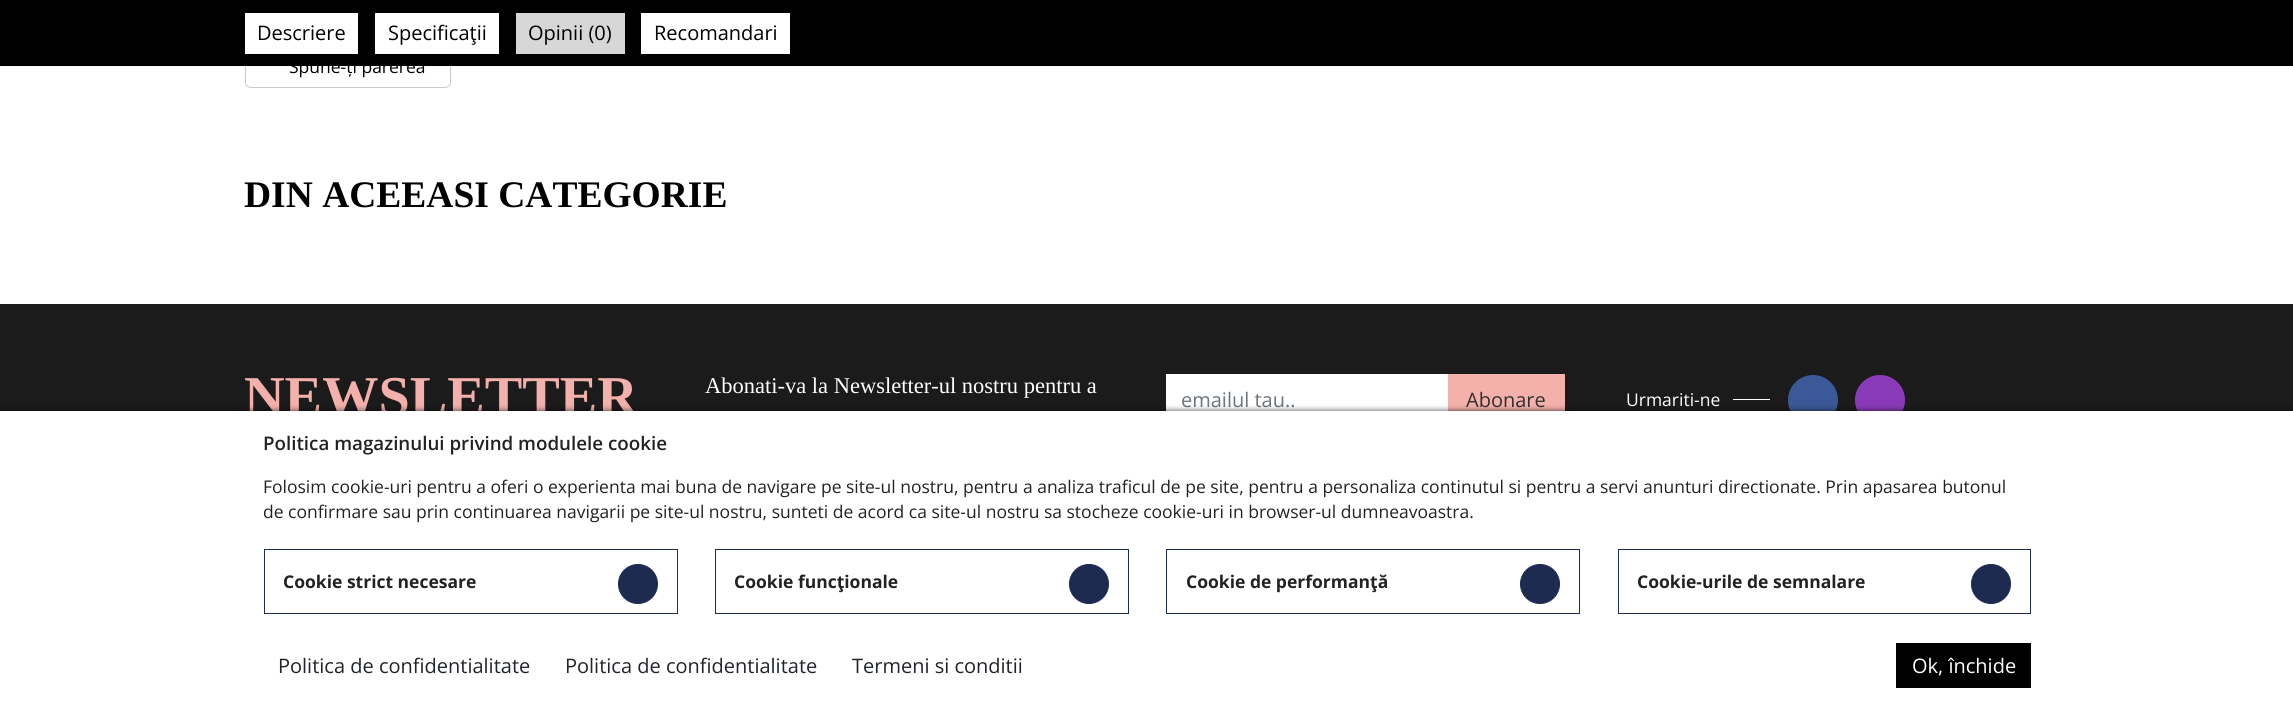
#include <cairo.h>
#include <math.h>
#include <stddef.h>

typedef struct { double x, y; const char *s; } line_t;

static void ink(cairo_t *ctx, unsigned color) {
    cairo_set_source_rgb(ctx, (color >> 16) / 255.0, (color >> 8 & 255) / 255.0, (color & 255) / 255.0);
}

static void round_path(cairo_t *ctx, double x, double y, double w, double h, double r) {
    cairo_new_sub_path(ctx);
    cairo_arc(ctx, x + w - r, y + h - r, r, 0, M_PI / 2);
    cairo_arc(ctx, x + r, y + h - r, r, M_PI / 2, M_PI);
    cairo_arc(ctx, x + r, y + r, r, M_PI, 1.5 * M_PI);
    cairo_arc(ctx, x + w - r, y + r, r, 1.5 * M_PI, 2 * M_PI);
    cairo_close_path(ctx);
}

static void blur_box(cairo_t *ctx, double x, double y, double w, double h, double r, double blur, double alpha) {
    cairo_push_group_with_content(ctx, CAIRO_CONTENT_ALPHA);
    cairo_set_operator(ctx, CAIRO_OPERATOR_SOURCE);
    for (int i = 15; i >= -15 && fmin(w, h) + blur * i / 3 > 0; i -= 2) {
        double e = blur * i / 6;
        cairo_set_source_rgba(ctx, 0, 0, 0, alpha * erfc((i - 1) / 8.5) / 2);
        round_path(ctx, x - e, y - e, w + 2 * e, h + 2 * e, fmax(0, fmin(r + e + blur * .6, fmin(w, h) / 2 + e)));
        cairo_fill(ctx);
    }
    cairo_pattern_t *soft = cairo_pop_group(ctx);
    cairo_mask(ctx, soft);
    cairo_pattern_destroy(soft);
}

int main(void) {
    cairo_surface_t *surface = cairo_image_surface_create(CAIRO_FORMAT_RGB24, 2293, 706);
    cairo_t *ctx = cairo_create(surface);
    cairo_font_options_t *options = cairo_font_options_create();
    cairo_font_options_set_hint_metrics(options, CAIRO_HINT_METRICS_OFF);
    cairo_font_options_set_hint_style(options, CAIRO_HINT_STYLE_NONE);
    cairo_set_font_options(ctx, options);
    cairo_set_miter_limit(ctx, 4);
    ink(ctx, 0xFFFFFF);
    cairo_paint(ctx);
    round_path(ctx, 245.5, 48.5, 205, 39, 5.5);
    ink(ctx, 0xC9C9C9);
    cairo_set_line_width(ctx, 1);
    cairo_stroke(ctx);
    ink(ctx, 0x000000);
    cairo_rectangle(ctx, 0, 0, 2293, 66);
    cairo_fill(ctx);
    ink(ctx, 0xFFFFFF);
    cairo_rectangle(ctx, 245, 13, 113, 41);
    cairo_fill(ctx);
    cairo_select_font_face(ctx, "Open Sans", CAIRO_FONT_SLANT_NORMAL, CAIRO_FONT_WEIGHT_NORMAL);
    cairo_set_font_size(ctx, 20);
    ink(ctx, 0x000000);
    cairo_move_to(ctx, 257, 40);
    cairo_show_text(ctx, "Descriere");
    ink(ctx, 0xFFFFFF);
    cairo_rectangle(ctx, 375, 13, 124, 41);
    cairo_fill(ctx);
    ink(ctx, 0x000000);
    cairo_move_to(ctx, 388, 40);
    cairo_show_text(ctx, "Specificaţii");
    ink(ctx, 0xD7D7D7);
    cairo_rectangle(ctx, 516, 13, 109, 41);
    cairo_fill(ctx);
    ink(ctx, 0x000000);
    cairo_move_to(ctx, 528, 40);
    cairo_show_text(ctx, "Opinii (0)");
    ink(ctx, 0xFFFFFF);
    cairo_rectangle(ctx, 641, 13, 149, 41);
    cairo_fill(ctx);
    ink(ctx, 0x000000);
    cairo_move_to(ctx, 654, 40);
    cairo_show_text(ctx, "Recomandari");
    cairo_set_font_size(ctx, 17.5);
    cairo_move_to(ctx, 289, 73);
    cairo_show_text(ctx, "Spune-ți părerea");
    cairo_select_font_face(ctx, "Liberation Serif", CAIRO_FONT_SLANT_NORMAL, CAIRO_FONT_WEIGHT_BOLD);
    cairo_set_font_size(ctx, 37.5);
    cairo_move_to(ctx, 244, 207);
    cairo_show_text(ctx, "DIN ACEEASI CATEGORIE");
    ink(ctx, 0x1B1B1B);
    cairo_rectangle(ctx, 0, 304, 2293, 107);
    cairo_fill(ctx);
    cairo_set_font_size(ctx, 56.25);
    ink(ctx, 0xF4B1AB);
    cairo_move_to(ctx, 244, 415);
    cairo_show_text(ctx, "NEWSLETTER");
    cairo_select_font_face(ctx, "Liberation Serif", CAIRO_FONT_SLANT_NORMAL, CAIRO_FONT_WEIGHT_NORMAL);
    cairo_set_font_size(ctx, 22.5);
    ink(ctx, 0xFFFFFF);
    cairo_move_to(ctx, 705, 393);
    cairo_show_text(ctx, "Abonati-va la Newsletter-ul nostru pentru a");
    cairo_rectangle(ctx, 1166, 374, 282, 37);
    cairo_fill(ctx);
    cairo_select_font_face(ctx, "Open Sans", CAIRO_FONT_SLANT_NORMAL, CAIRO_FONT_WEIGHT_NORMAL);
    cairo_set_font_size(ctx, 20);
    ink(ctx, 0x6C757D);
    cairo_move_to(ctx, 1181, 407);
    cairo_show_text(ctx, "emailul tau..");
    ink(ctx, 0xF4B1AB);
    cairo_rectangle(ctx, 1448, 374, 117, 37);
    cairo_fill(ctx);
    ink(ctx, 0x303030);
    cairo_move_to(ctx, 1466, 407);
    cairo_show_text(ctx, "Abonare");
    cairo_set_font_size(ctx, 17.5);
    ink(ctx, 0xFFFFFF);
    cairo_move_to(ctx, 1626, 406);
    cairo_show_text(ctx, "Urmariti-ne");
    cairo_rectangle(ctx, 1733, 399, 37, 1);
    cairo_fill(ctx);
    ink(ctx, 0x3B5998);
    cairo_arc(ctx, 1813, 400, 25, 0, 2 * M_PI);
    cairo_fill(ctx);
    ink(ctx, 0x8A3AB9);
    cairo_arc(ctx, 1880, 400, 25, 0, 2 * M_PI);
    cairo_fill(ctx);
    ink(ctx, 0x000000);
    blur_box(ctx, 0, 411, 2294, 295, 0, 3, 0.75);
    ink(ctx, 0xFFFFFF);
    cairo_rectangle(ctx, 0, 411, 2293, 295);
    cairo_fill(ctx);
    cairo_select_font_face(ctx, "Open Sans SemiBold", CAIRO_FONT_SLANT_NORMAL, CAIRO_FONT_WEIGHT_NORMAL);
    cairo_set_font_size(ctx, 18.75);
    ink(ctx, 0x222222);
    cairo_move_to(ctx, 263, 450);
    cairo_show_text(ctx, "Politica magazinului privind modulele cookie");
    cairo_select_font_face(ctx, "Open Sans", CAIRO_FONT_SLANT_NORMAL, CAIRO_FONT_WEIGHT_NORMAL);
    cairo_set_font_size(ctx, 17.5);
    cairo_move_to(ctx, 263, 493);
    cairo_show_text(ctx, "Folosim cookie-uri pentru a oferi o experienta mai buna de navigare pe site-ul nostru, pentru a analiza traficul de pe site, pentru a personaliza continutul si pentru a servi anunturi directionate. Prin apasarea butonul");
    cairo_move_to(ctx, 263, 518);
    cairo_show_text(ctx, "de confirmare sau prin continuarea navigarii pe site-ul nostru, sunteti de acord ca site-ul nostru sa stocheze cookie-uri in browser-ul dumneavoastra.");
    cairo_rectangle(ctx, 264.5, 549.5, 413, 64);
    ink(ctx, 0x1D2B50);
    cairo_stroke(ctx);
    cairo_select_font_face(ctx, "Open Sans", CAIRO_FONT_SLANT_NORMAL, CAIRO_FONT_WEIGHT_BOLD);
    ink(ctx, 0x222222);
    cairo_move_to(ctx, 283, 588);
    cairo_show_text(ctx, "Cookie strict necesare");
    ink(ctx, 0x1D2B50);
    cairo_new_path(ctx);
    cairo_arc(ctx, 638, 584, 19.5, 0, 2 * M_PI);
    cairo_fill_preserve(ctx);
    cairo_stroke(ctx);
    cairo_rectangle(ctx, 715.5, 549.5, 413, 64);
    cairo_stroke(ctx);
    ink(ctx, 0x222222);
    cairo_move_to(ctx, 734, 588);
    cairo_show_text(ctx, "Cookie funcţionale");
    ink(ctx, 0x1D2B50);
    cairo_new_path(ctx);
    cairo_arc(ctx, 1089, 584, 19.5, 0, 2 * M_PI);
    cairo_fill_preserve(ctx);
    cairo_stroke(ctx);
    cairo_rectangle(ctx, 1166.5, 549.5, 413, 64);
    cairo_stroke(ctx);
    ink(ctx, 0x222222);
    cairo_move_to(ctx, 1186, 588);
    cairo_show_text(ctx, "Cookie de performanţă");
    ink(ctx, 0x1D2B50);
    cairo_new_path(ctx);
    cairo_arc(ctx, 1540, 584, 19.5, 0, 2 * M_PI);
    cairo_fill_preserve(ctx);
    cairo_stroke(ctx);
    cairo_rectangle(ctx, 1618.5, 549.5, 412, 64);
    cairo_stroke(ctx);
    ink(ctx, 0x222222);
    cairo_move_to(ctx, 1637, 588);
    cairo_show_text(ctx, "Cookie-urile de semnalare");
    ink(ctx, 0x1D2B50);
    cairo_new_path(ctx);
    cairo_arc(ctx, 1991, 584, 19.5, 0, 2 * M_PI);
    cairo_fill_preserve(ctx);
    cairo_stroke(ctx);
    cairo_select_font_face(ctx, "Open Sans", CAIRO_FONT_SLANT_NORMAL, CAIRO_FONT_WEIGHT_NORMAL);
    cairo_set_font_size(ctx, 20);
    ink(ctx, 0x212529);
    {
        static const line_t items[] = {
            {278, 673, "Politica de confidentialitate"},
            {565, 673, "Politica de confidentialitate"},
            {852, 673, "Termeni si conditii"},
        };
        for (size_t i = 0; i < sizeof items / sizeof *items; i++) {
            cairo_move_to(ctx, items[i].x, items[i].y);
            cairo_show_text(ctx, items[i].s);
        }
    }
    ink(ctx, 0x000000);
    cairo_rectangle(ctx, 1896, 643, 135, 45);
    cairo_fill(ctx);
    ink(ctx, 0xFFFFFF);
    cairo_move_to(ctx, 1912, 673);
    cairo_show_text(ctx, "Ok, închide");
    cairo_surface_write_to_png(surface, "image.png");
    cairo_font_options_destroy(options);
    cairo_destroy(ctx);
    cairo_surface_destroy(surface);
    return 0;
}
